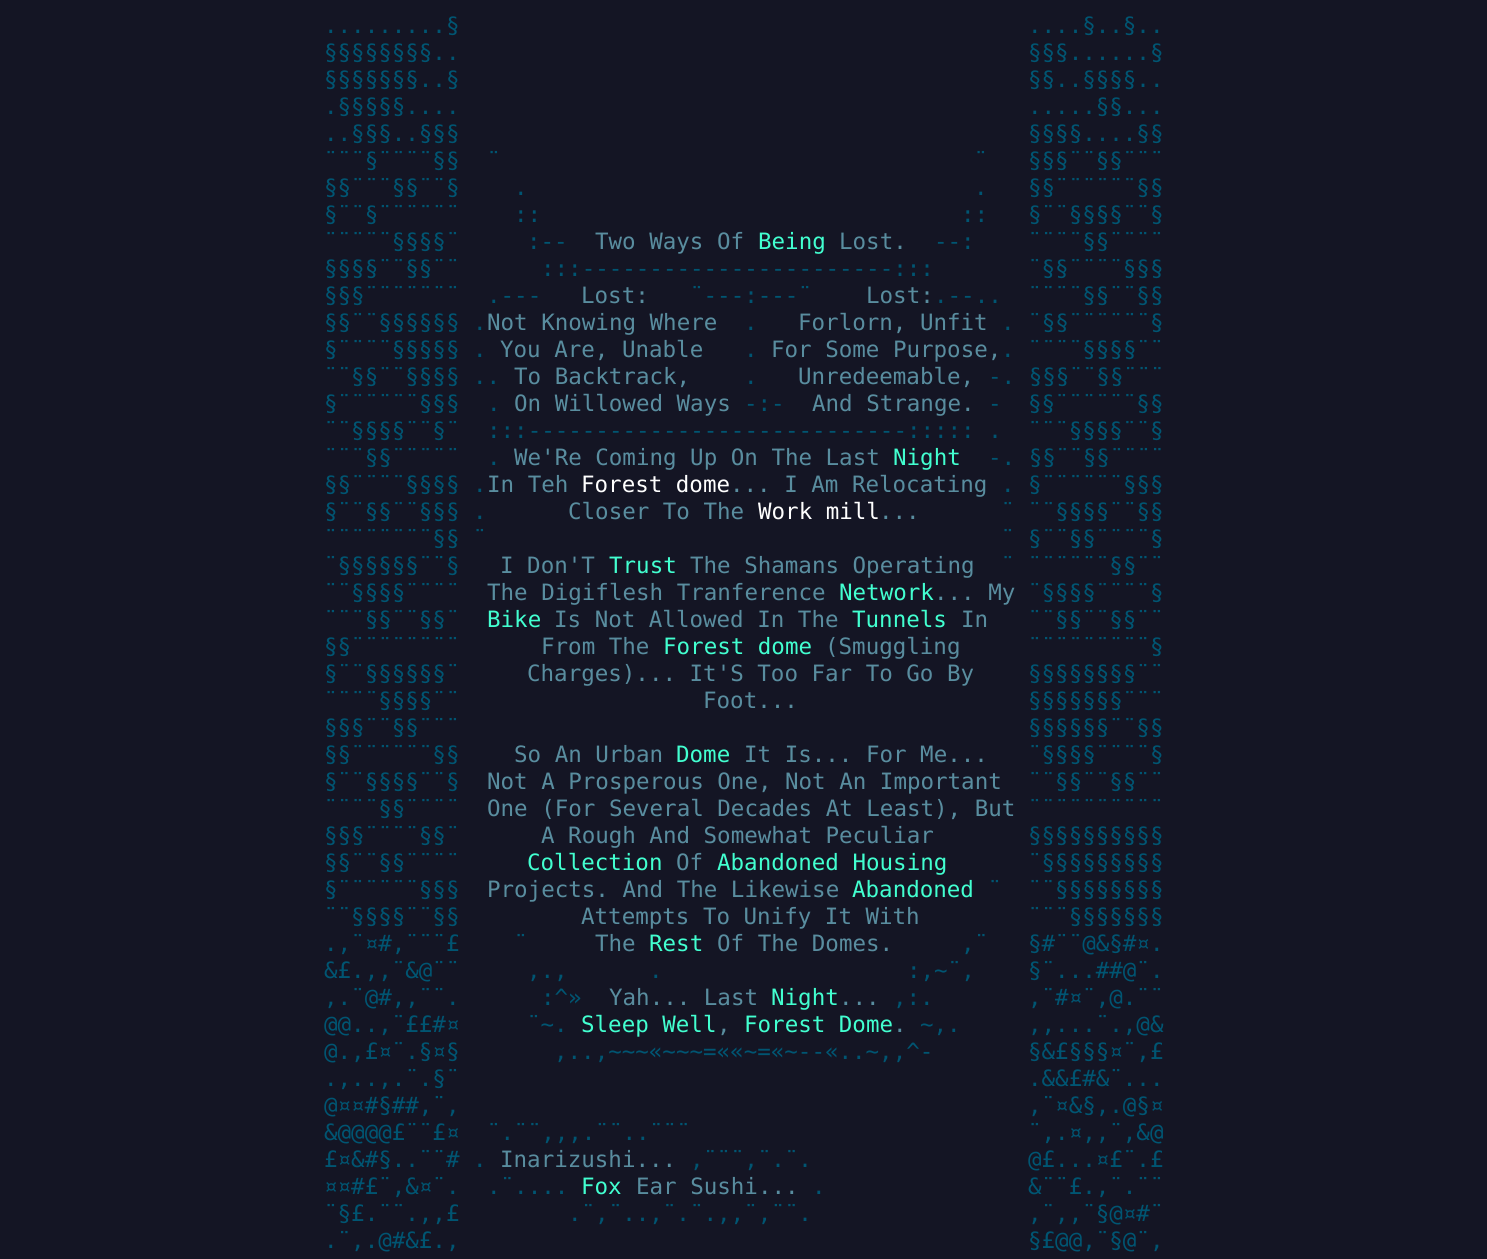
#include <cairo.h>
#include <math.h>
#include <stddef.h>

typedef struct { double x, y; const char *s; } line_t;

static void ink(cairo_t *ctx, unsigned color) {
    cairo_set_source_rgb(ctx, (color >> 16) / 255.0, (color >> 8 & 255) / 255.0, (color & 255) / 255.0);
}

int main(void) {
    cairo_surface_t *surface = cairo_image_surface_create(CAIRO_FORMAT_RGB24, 1487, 1259);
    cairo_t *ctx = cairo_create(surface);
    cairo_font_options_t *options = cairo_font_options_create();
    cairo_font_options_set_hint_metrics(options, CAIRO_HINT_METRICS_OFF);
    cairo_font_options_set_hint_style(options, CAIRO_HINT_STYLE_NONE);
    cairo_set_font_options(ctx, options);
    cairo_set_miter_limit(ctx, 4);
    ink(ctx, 0x141524);
    cairo_paint(ctx);
    cairo_select_font_face(ctx, "DejaVu Sans Mono", CAIRO_FONT_SLANT_NORMAL, CAIRO_FONT_WEIGHT_NORMAL);
    cairo_set_font_size(ctx, 22.5);
    ink(ctx, 0x005572);
    {
        static const line_t items[] = {
            {324, 33, ".........§"},
            {1028, 33, "....§..§.."},
            {324, 60, "§§§§§§§§.."},
            {1028, 60, "§§§......§"},
            {324, 87, "§§§§§§§..§"},
            {1028, 87, "§§..§§§§.."},
            {324, 114, ".§§§§§...."},
            {1028, 114, ".....§§..."},
            {324, 141, "..§§§..§§§"},
            {1028, 141, "§§§§....§§"},
            {324, 168, "¨¨¨§¨¨¨¨§§"},
            {487, 168, "¨"},
            {974, 168, "¨"},
            {1028, 168, "§§§¨¨§§¨¨¨"},
            {324, 195, "§§¨¨¨§§¨¨§"},
            {514, 195, "."},
            {974, 195, "."},
            {1028, 195, "§§¨¨¨¨¨¨§§"},
            {324, 222, "§¨¨§¨¨¨¨¨¨"},
            {514, 222, "::"},
            {961, 222, "::"},
            {1028, 222, "§¨¨§§§§¨¨§"},
            {324, 249, "¨¨¨¨¨§§§§¨"},
            {527, 249, ":--"},
        };
        for (size_t i = 0; i < sizeof items / sizeof *items; i++) {
            cairo_move_to(ctx, items[i].x, items[i].y);
            cairo_show_text(ctx, items[i].s);
        }
    }
    ink(ctx, 0x598D9F);
    cairo_move_to(ctx, 595, 249);
    cairo_show_text(ctx, "Two Ways Of");
    ink(ctx, 0x42FFD0);
    cairo_move_to(ctx, 758, 249);
    cairo_show_text(ctx, "Being");
    ink(ctx, 0x598D9F);
    cairo_move_to(ctx, 839, 249);
    cairo_show_text(ctx, "Lost.");
    ink(ctx, 0x005572);
    {
        static const line_t items[] = {
            {934, 249, "--:"},
            {1028, 249, "¨¨¨¨§§¨¨¨¨"},
            {324, 276, "§§§§¨¨§§¨¨"},
            {541, 276, ":::-----------------------:::"},
            {1028, 276, "¨§§¨¨¨¨§§§"},
            {324, 303, "§§§¨¨¨¨¨¨¨"},
            {487, 303, ".---"},
        };
        for (size_t i = 0; i < sizeof items / sizeof *items; i++) {
            cairo_move_to(ctx, items[i].x, items[i].y);
            cairo_show_text(ctx, items[i].s);
        }
    }
    ink(ctx, 0x598D9F);
    cairo_move_to(ctx, 581, 303);
    cairo_show_text(ctx, "Lost:");
    ink(ctx, 0x005572);
    cairo_move_to(ctx, 690, 303);
    cairo_show_text(ctx, "¨---:---¨");
    ink(ctx, 0x598D9F);
    cairo_move_to(ctx, 866, 303);
    cairo_show_text(ctx, "Lost:");
    ink(ctx, 0x005572);
    {
        static const line_t items[] = {
            {934, 303, ".--.."},
            {1028, 303, "¨¨¨¨§§¨¨§§"},
            {324, 330, "§§¨¨§§§§§§ ."},
        };
        for (size_t i = 0; i < sizeof items / sizeof *items; i++) {
            cairo_move_to(ctx, items[i].x, items[i].y);
            cairo_show_text(ctx, items[i].s);
        }
    }
    ink(ctx, 0x598D9F);
    cairo_move_to(ctx, 487, 330);
    cairo_show_text(ctx, "Not Knowing Where");
    ink(ctx, 0x005572);
    cairo_move_to(ctx, 744, 330);
    cairo_show_text(ctx, ".");
    ink(ctx, 0x598D9F);
    cairo_move_to(ctx, 798, 330);
    cairo_show_text(ctx, "Forlorn, Unfit");
    ink(ctx, 0x005572);
    cairo_move_to(ctx, 1001, 330);
    cairo_show_text(ctx, ". ¨§§¨¨¨¨¨¨§");
    cairo_move_to(ctx, 324, 357);
    cairo_show_text(ctx, "§¨¨¨¨§§§§§ .");
    ink(ctx, 0x598D9F);
    cairo_move_to(ctx, 500, 357);
    cairo_show_text(ctx, "You Are, Unable");
    ink(ctx, 0x005572);
    cairo_move_to(ctx, 744, 357);
    cairo_show_text(ctx, ".");
    ink(ctx, 0x598D9F);
    cairo_move_to(ctx, 771, 357);
    cairo_show_text(ctx, "For Some Purpose,");
    ink(ctx, 0x005572);
    cairo_move_to(ctx, 1001, 357);
    cairo_show_text(ctx, ". ¨¨¨¨§§§§¨¨");
    cairo_move_to(ctx, 324, 384);
    cairo_show_text(ctx, "¨¨§§¨¨§§§§ ..");
    ink(ctx, 0x598D9F);
    cairo_move_to(ctx, 514, 384);
    cairo_show_text(ctx, "To Backtrack,");
    ink(ctx, 0x005572);
    cairo_move_to(ctx, 744, 384);
    cairo_show_text(ctx, ".");
    ink(ctx, 0x598D9F);
    cairo_move_to(ctx, 798, 384);
    cairo_show_text(ctx, "Unredeemable,");
    ink(ctx, 0x005572);
    cairo_move_to(ctx, 988, 384);
    cairo_show_text(ctx, "-. §§§¨¨§§¨¨¨");
    cairo_move_to(ctx, 324, 411);
    cairo_show_text(ctx, "§¨¨¨¨¨¨§§§");
    ink(ctx, 0x598D9F);
    cairo_move_to(ctx, 514, 411);
    cairo_show_text(ctx, "On Willowed Ways");
    ink(ctx, 0x005572);
    cairo_move_to(ctx, 744, 411);
    cairo_show_text(ctx, "-:-");
    ink(ctx, 0x598D9F);
    cairo_move_to(ctx, 812, 411);
    cairo_show_text(ctx, "And Strange.");
    ink(ctx, 0x005572);
    {
        static const line_t items[] = {
            {988, 411, "-"},
            {1028, 411, "§§¨¨¨¨¨¨§§"},
            {487, 411, "."},
            {324, 438, "¨¨§§§§¨¨§¨"},
            {487, 438, ":::----------------------------::::: ."},
            {1028, 438, "¨¨¨§§§§¨¨§"},
            {324, 465, "¨¨¨§§¨¨¨¨¨"},
            {487, 465, "."},
        };
        for (size_t i = 0; i < sizeof items / sizeof *items; i++) {
            cairo_move_to(ctx, items[i].x, items[i].y);
            cairo_show_text(ctx, items[i].s);
        }
    }
    ink(ctx, 0x598D9F);
    cairo_move_to(ctx, 514, 465);
    cairo_show_text(ctx, "We'Re Coming Up On The Last");
    ink(ctx, 0x42FFD0);
    cairo_move_to(ctx, 893, 465);
    cairo_show_text(ctx, "Night");
    ink(ctx, 0x005572);
    cairo_move_to(ctx, 988, 465);
    cairo_show_text(ctx, "-. §§¨¨§§¨¨¨¨");
    cairo_move_to(ctx, 324, 492);
    cairo_show_text(ctx, "§§¨¨¨¨§§§§ .");
    ink(ctx, 0x598D9F);
    cairo_move_to(ctx, 487, 492);
    cairo_show_text(ctx, "In Teh");
    ink(ctx, 0xFFFFFF);
    cairo_move_to(ctx, 581, 492);
    cairo_show_text(ctx, "Forest dome");
    ink(ctx, 0x598D9F);
    cairo_move_to(ctx, 730, 492);
    cairo_show_text(ctx, "... I Am Relocating");
    ink(ctx, 0x005572);
    cairo_move_to(ctx, 1001, 492);
    cairo_show_text(ctx, ". §¨¨¨¨¨¨§§§");
    cairo_move_to(ctx, 324, 519);
    cairo_show_text(ctx, "§¨¨§§¨¨§§§ .");
    ink(ctx, 0x598D9F);
    cairo_move_to(ctx, 568, 519);
    cairo_show_text(ctx, "Closer To The");
    ink(ctx, 0xFFFFFF);
    cairo_move_to(ctx, 758, 519);
    cairo_show_text(ctx, "Work mill");
    ink(ctx, 0x598D9F);
    cairo_move_to(ctx, 879, 519);
    cairo_show_text(ctx, "...");
    ink(ctx, 0x005572);
    {
        static const line_t items[] = {
            {1001, 519, "¨ ¨¨§§§§¨¨§§"},
            {324, 546, "¨¨¨¨¨¨¨¨§§ ¨"},
            {1001, 546, "¨ §¨¨§§¨¨¨¨§"},
            {324, 573, "¨§§§§§§¨¨§"},
        };
        for (size_t i = 0; i < sizeof items / sizeof *items; i++) {
            cairo_move_to(ctx, items[i].x, items[i].y);
            cairo_show_text(ctx, items[i].s);
        }
    }
    ink(ctx, 0x598D9F);
    cairo_move_to(ctx, 500, 573);
    cairo_show_text(ctx, "I Don'T");
    ink(ctx, 0x42FFD0);
    cairo_move_to(ctx, 609, 573);
    cairo_show_text(ctx, "Trust");
    ink(ctx, 0x598D9F);
    cairo_move_to(ctx, 690, 573);
    cairo_show_text(ctx, "The Shamans Operating");
    ink(ctx, 0x005572);
    cairo_move_to(ctx, 1001, 573);
    cairo_show_text(ctx, "¨ ¨¨¨¨¨¨§§¨¨");
    cairo_move_to(ctx, 324, 600);
    cairo_show_text(ctx, "¨¨§§§§¨¨¨¨");
    ink(ctx, 0x598D9F);
    cairo_move_to(ctx, 487, 600);
    cairo_show_text(ctx, "The Digiflesh Tranference");
    ink(ctx, 0x42FFD0);
    cairo_move_to(ctx, 839, 600);
    cairo_show_text(ctx, "Network");
    ink(ctx, 0x598D9F);
    cairo_move_to(ctx, 934, 600);
    cairo_show_text(ctx, "... My");
    ink(ctx, 0x005572);
    cairo_move_to(ctx, 1028, 600);
    cairo_show_text(ctx, "¨§§§§¨¨¨¨§");
    cairo_move_to(ctx, 324, 627);
    cairo_show_text(ctx, "¨¨¨§§¨¨§§¨");
    ink(ctx, 0x42FFD0);
    cairo_move_to(ctx, 487, 627);
    cairo_show_text(ctx, "Bike");
    ink(ctx, 0x598D9F);
    cairo_move_to(ctx, 554, 627);
    cairo_show_text(ctx, "Is Not Allowed In The");
    ink(ctx, 0x42FFD0);
    cairo_move_to(ctx, 852, 627);
    cairo_show_text(ctx, "Tunnels");
    ink(ctx, 0x598D9F);
    cairo_move_to(ctx, 961, 627);
    cairo_show_text(ctx, "In");
    ink(ctx, 0x005572);
    cairo_move_to(ctx, 1028, 627);
    cairo_show_text(ctx, "¨¨§§¨¨§§¨¨");
    cairo_move_to(ctx, 324, 654);
    cairo_show_text(ctx, "§§¨¨¨¨¨¨¨¨");
    ink(ctx, 0x598D9F);
    cairo_move_to(ctx, 541, 654);
    cairo_show_text(ctx, "From The");
    ink(ctx, 0x42FFD0);
    cairo_move_to(ctx, 663, 654);
    cairo_show_text(ctx, "Forest dome");
    ink(ctx, 0x598D9F);
    cairo_move_to(ctx, 825, 654);
    cairo_show_text(ctx, "(Smuggling");
    ink(ctx, 0x005572);
    cairo_move_to(ctx, 1028, 654);
    cairo_show_text(ctx, "¨¨¨¨¨¨¨¨¨§");
    cairo_move_to(ctx, 324, 681);
    cairo_show_text(ctx, "§¨¨§§§§§§¨");
    ink(ctx, 0x598D9F);
    cairo_move_to(ctx, 527, 681);
    cairo_show_text(ctx, "Charges)... It'S Too Far To Go By");
    ink(ctx, 0x005572);
    cairo_move_to(ctx, 1028, 681);
    cairo_show_text(ctx, "§§§§§§§§¨¨");
    cairo_move_to(ctx, 324, 708);
    cairo_show_text(ctx, "¨¨¨¨§§§§¨¨");
    ink(ctx, 0x598D9F);
    cairo_move_to(ctx, 703, 708);
    cairo_show_text(ctx, "Foot...");
    ink(ctx, 0x005572);
    {
        static const line_t items[] = {
            {1028, 708, "§§§§§§§¨¨¨"},
            {324, 735, "§§§¨¨§§¨¨¨"},
            {1028, 735, "§§§§§§¨¨§§"},
            {324, 762, "§§¨¨¨¨¨¨§§"},
        };
        for (size_t i = 0; i < sizeof items / sizeof *items; i++) {
            cairo_move_to(ctx, items[i].x, items[i].y);
            cairo_show_text(ctx, items[i].s);
        }
    }
    ink(ctx, 0x598D9F);
    cairo_move_to(ctx, 514, 762);
    cairo_show_text(ctx, "So An Urban");
    ink(ctx, 0x42FFD0);
    cairo_move_to(ctx, 676, 762);
    cairo_show_text(ctx, "Dome");
    ink(ctx, 0x598D9F);
    cairo_move_to(ctx, 744, 762);
    cairo_show_text(ctx, "It Is... For Me...");
    ink(ctx, 0x005572);
    cairo_move_to(ctx, 1028, 762);
    cairo_show_text(ctx, "¨§§§§¨¨¨¨§");
    cairo_move_to(ctx, 324, 789);
    cairo_show_text(ctx, "§¨¨§§§§¨¨§");
    ink(ctx, 0x598D9F);
    cairo_move_to(ctx, 487, 789);
    cairo_show_text(ctx, "Not A Prosperous One, Not An Important");
    ink(ctx, 0x005572);
    cairo_move_to(ctx, 1028, 789);
    cairo_show_text(ctx, "¨¨§§¨¨§§¨¨");
    cairo_move_to(ctx, 324, 816);
    cairo_show_text(ctx, "¨¨¨¨§§¨¨¨¨");
    ink(ctx, 0x598D9F);
    cairo_move_to(ctx, 487, 816);
    cairo_show_text(ctx, "One (For Several Decades At Least), But");
    ink(ctx, 0x005572);
    cairo_move_to(ctx, 1028, 816);
    cairo_show_text(ctx, "¨¨¨¨¨¨¨¨¨¨");
    cairo_move_to(ctx, 324, 843);
    cairo_show_text(ctx, "§§§¨¨¨¨§§¨");
    ink(ctx, 0x598D9F);
    cairo_move_to(ctx, 541, 843);
    cairo_show_text(ctx, "A Rough And Somewhat Peculiar");
    ink(ctx, 0x005572);
    cairo_move_to(ctx, 1028, 843);
    cairo_show_text(ctx, "§§§§§§§§§§");
    cairo_move_to(ctx, 324, 870);
    cairo_show_text(ctx, "§§¨¨§§¨¨¨¨");
    ink(ctx, 0x42FFD0);
    cairo_move_to(ctx, 527, 870);
    cairo_show_text(ctx, "Collection");
    ink(ctx, 0x598D9F);
    cairo_move_to(ctx, 676, 870);
    cairo_show_text(ctx, "Of");
    ink(ctx, 0x42FFD0);
    cairo_move_to(ctx, 717, 870);
    cairo_show_text(ctx, "Abandoned Housing");
    ink(ctx, 0x005572);
    cairo_move_to(ctx, 1028, 870);
    cairo_show_text(ctx, "¨§§§§§§§§§");
    cairo_move_to(ctx, 324, 897);
    cairo_show_text(ctx, "§¨¨¨¨¨¨§§§");
    ink(ctx, 0x598D9F);
    cairo_move_to(ctx, 487, 897);
    cairo_show_text(ctx, "Projects. And The Likewise");
    ink(ctx, 0x42FFD0);
    cairo_move_to(ctx, 852, 897);
    cairo_show_text(ctx, "Abandoned");
    ink(ctx, 0x005572);
    {
        static const line_t items[] = {
            {988, 897, "¨"},
            {1028, 897, "¨¨§§§§§§§§"},
            {324, 924, "¨¨§§§§¨¨§§"},
        };
        for (size_t i = 0; i < sizeof items / sizeof *items; i++) {
            cairo_move_to(ctx, items[i].x, items[i].y);
            cairo_show_text(ctx, items[i].s);
        }
    }
    ink(ctx, 0x598D9F);
    cairo_move_to(ctx, 581, 924);
    cairo_show_text(ctx, "Attempts To Unify It With");
    ink(ctx, 0x005572);
    {
        static const line_t items[] = {
            {1028, 924, "¨¨¨§§§§§§§"},
            {324, 951, ".,¨¤#,¨¨¨£"},
            {514, 951, "¨"},
        };
        for (size_t i = 0; i < sizeof items / sizeof *items; i++) {
            cairo_move_to(ctx, items[i].x, items[i].y);
            cairo_show_text(ctx, items[i].s);
        }
    }
    ink(ctx, 0x598D9F);
    cairo_move_to(ctx, 595, 951);
    cairo_show_text(ctx, "The");
    ink(ctx, 0x42FFD0);
    cairo_move_to(ctx, 649, 951);
    cairo_show_text(ctx, "Rest");
    ink(ctx, 0x598D9F);
    cairo_move_to(ctx, 717, 951);
    cairo_show_text(ctx, "Of The Domes.");
    ink(ctx, 0x005572);
    {
        static const line_t items[] = {
            {961, 951, ",¨"},
            {1028, 951, "§#¨¨@&§#¤."},
            {324, 978, "&£.,,¨&@¨¨"},
            {527, 978, ",.,"},
            {649, 978, "."},
            {907, 978, ":,~¨,"},
            {1028, 978, "§¨...##@¨."},
            {324, 1005, ",.¨@#,,¨¨."},
            {541, 1005, ":^»"},
        };
        for (size_t i = 0; i < sizeof items / sizeof *items; i++) {
            cairo_move_to(ctx, items[i].x, items[i].y);
            cairo_show_text(ctx, items[i].s);
        }
    }
    ink(ctx, 0x598D9F);
    cairo_move_to(ctx, 609, 1005);
    cairo_show_text(ctx, "Yah... Last");
    ink(ctx, 0x42FFD0);
    cairo_move_to(ctx, 771, 1005);
    cairo_show_text(ctx, "Night");
    ink(ctx, 0x598D9F);
    cairo_move_to(ctx, 839, 1005);
    cairo_show_text(ctx, "...");
    ink(ctx, 0x005572);
    {
        static const line_t items[] = {
            {893, 1005, ",:."},
            {1028, 1005, ",¨#¤¨,@.¨¨"},
            {324, 1032, "@@..,¨££#¤"},
            {527, 1032, "¨~."},
        };
        for (size_t i = 0; i < sizeof items / sizeof *items; i++) {
            cairo_move_to(ctx, items[i].x, items[i].y);
            cairo_show_text(ctx, items[i].s);
        }
    }
    ink(ctx, 0x42FFD0);
    cairo_move_to(ctx, 581, 1032);
    cairo_show_text(ctx, "Sleep Well");
    ink(ctx, 0x598D9F);
    cairo_move_to(ctx, 717, 1032);
    cairo_show_text(ctx, ",");
    ink(ctx, 0x42FFD0);
    cairo_move_to(ctx, 744, 1032);
    cairo_show_text(ctx, "Forest Dome");
    ink(ctx, 0x598D9F);
    cairo_move_to(ctx, 893, 1032);
    cairo_show_text(ctx, ".");
    ink(ctx, 0x005572);
    {
        static const line_t items[] = {
            {920, 1032, "~,."},
            {1028, 1032, ",,...¨.,@&"},
            {324, 1059, "@.,£¤¨.§¤§"},
            {554, 1059, ",..,~~~«~~~=««~=«~--«..~,,^-"},
            {1028, 1059, "§&£§§§¤¨,£"},
            {324, 1086, ".,..,.¨.§¨"},
            {1028, 1086, ".&&£#&¨..."},
            {324, 1113, "@¤¤#§##,¨,"},
            {1028, 1113, ",¨¤&§,.@§¤"},
            {324, 1140, "&@@@@£¨¨£¤"},
            {487, 1140, "¨.¨¨,,,.¨¨..¨¨¨"},
            {1028, 1140, "¨,.¤,,¨,&@"},
            {324, 1167, "£¤&#§..¨¨# ."},
        };
        for (size_t i = 0; i < sizeof items / sizeof *items; i++) {
            cairo_move_to(ctx, items[i].x, items[i].y);
            cairo_show_text(ctx, items[i].s);
        }
    }
    ink(ctx, 0x598D9F);
    cairo_move_to(ctx, 500, 1167);
    cairo_show_text(ctx, "Inarizushi...");
    ink(ctx, 0x005572);
    {
        static const line_t items[] = {
            {690, 1167, ",¨¨¨,¨.¨."},
            {1028, 1167, "@£...¤£¨.£"},
            {324, 1194, "¤¤#£¨,&¤¨."},
            {487, 1194, ".¨...."},
        };
        for (size_t i = 0; i < sizeof items / sizeof *items; i++) {
            cairo_move_to(ctx, items[i].x, items[i].y);
            cairo_show_text(ctx, items[i].s);
        }
    }
    ink(ctx, 0x42FFD0);
    cairo_move_to(ctx, 581, 1194);
    cairo_show_text(ctx, "Fox");
    ink(ctx, 0x598D9F);
    cairo_move_to(ctx, 636, 1194);
    cairo_show_text(ctx, "Ear Sushi...");
    ink(ctx, 0x005572);
    {
        static const line_t items[] = {
            {812, 1194, "."},
            {1028, 1194, "&¨¨£.,¨.¨¨"},
            {324, 1221, "¨§£.¨¨.,,£"},
            {568, 1221, ".¨,¨..,¨.¨.,,¨,¨¨."},
            {1028, 1221, ",¨,,¨§@¤#¨"},
            {324, 1248, ".¨,.@#&£.,"},
            {1028, 1248, "§£@@,¨§@¨,"},
        };
        for (size_t i = 0; i < sizeof items / sizeof *items; i++) {
            cairo_move_to(ctx, items[i].x, items[i].y);
            cairo_show_text(ctx, items[i].s);
        }
    }
    cairo_surface_write_to_png(surface, "image.png");
    cairo_font_options_destroy(options);
    cairo_destroy(ctx);
    cairo_surface_destroy(surface);
    return 0;
}
